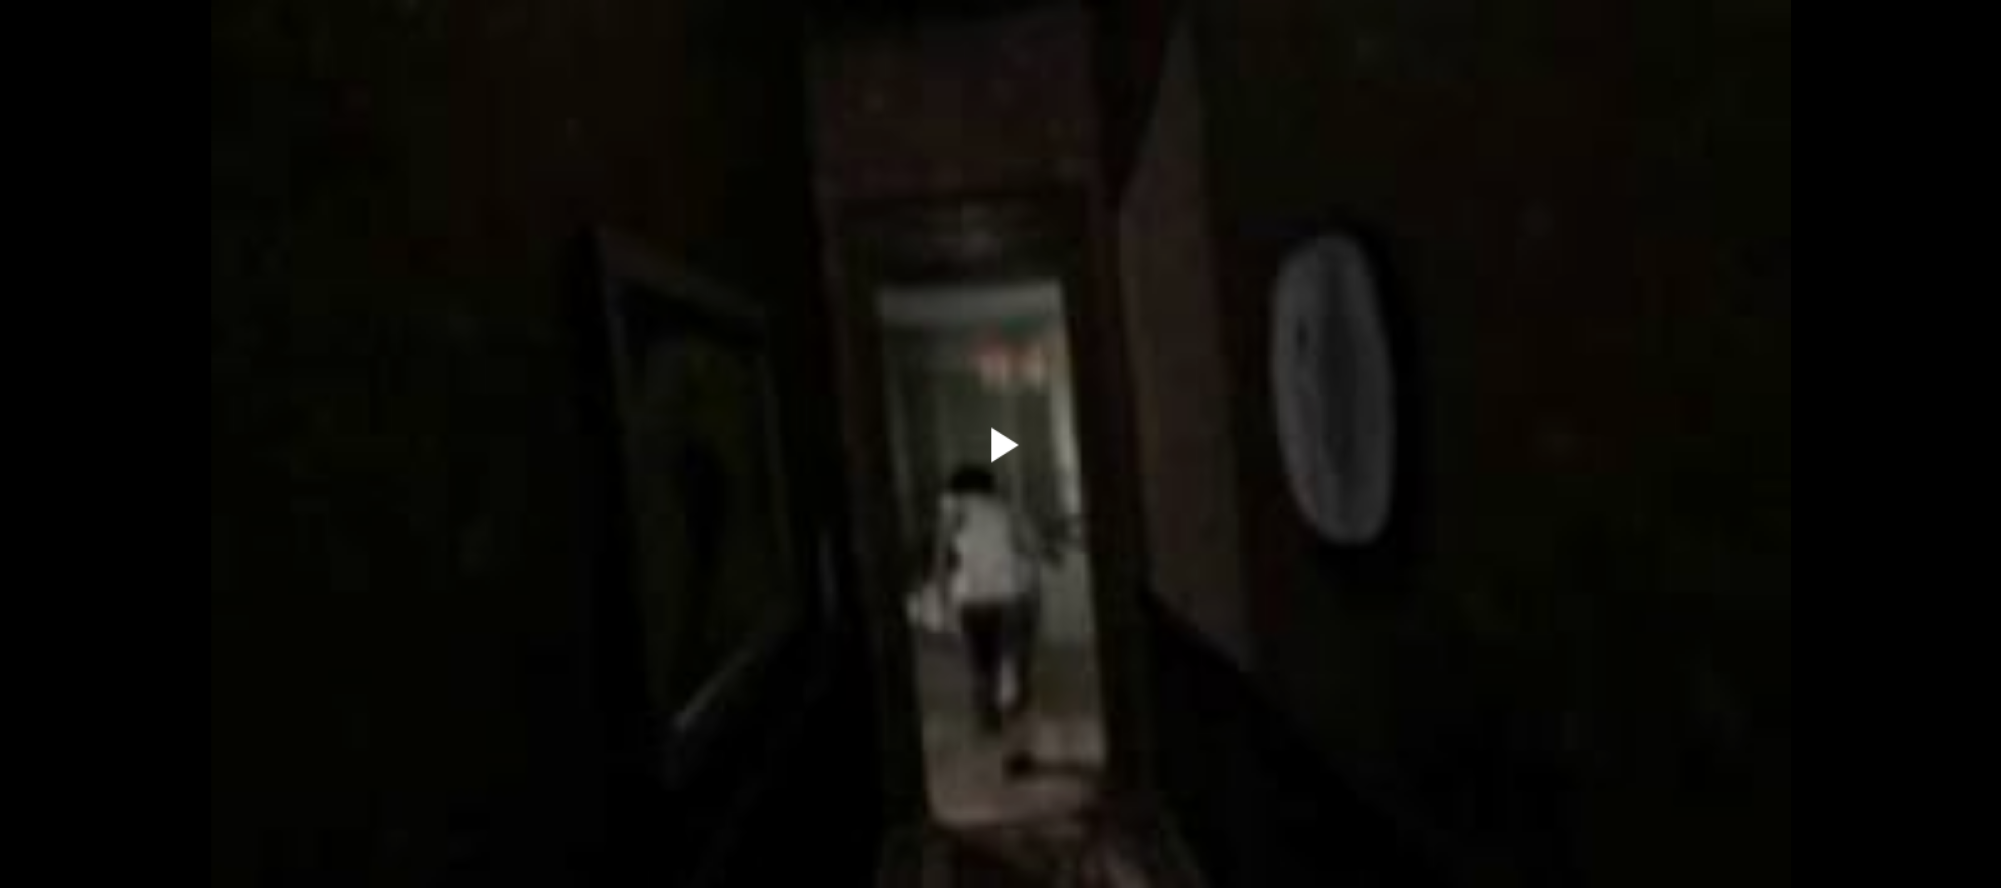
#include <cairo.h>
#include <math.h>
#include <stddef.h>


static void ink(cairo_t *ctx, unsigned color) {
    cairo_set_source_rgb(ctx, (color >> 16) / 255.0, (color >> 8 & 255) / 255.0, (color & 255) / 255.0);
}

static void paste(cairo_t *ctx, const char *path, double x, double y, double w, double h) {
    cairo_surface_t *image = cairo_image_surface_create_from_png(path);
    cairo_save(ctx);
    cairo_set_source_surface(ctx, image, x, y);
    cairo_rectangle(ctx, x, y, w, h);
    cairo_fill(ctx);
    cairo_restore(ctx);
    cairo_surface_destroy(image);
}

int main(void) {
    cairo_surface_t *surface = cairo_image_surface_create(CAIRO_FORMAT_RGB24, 2001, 888);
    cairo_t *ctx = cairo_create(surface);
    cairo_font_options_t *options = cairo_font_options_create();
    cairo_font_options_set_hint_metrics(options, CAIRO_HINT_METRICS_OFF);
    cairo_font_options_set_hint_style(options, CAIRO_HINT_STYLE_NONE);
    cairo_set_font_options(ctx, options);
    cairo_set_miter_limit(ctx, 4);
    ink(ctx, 0x000000);
    cairo_paint(ctx);
    paste(ctx, "media/1.png", 211, 0, 1580, 888);
    paste(ctx, "media/2.png", 991, 427, 28, 36);
    cairo_surface_write_to_png(surface, "image.png");
    cairo_font_options_destroy(options);
    cairo_destroy(ctx);
    cairo_surface_destroy(surface);
    return 0;
}
